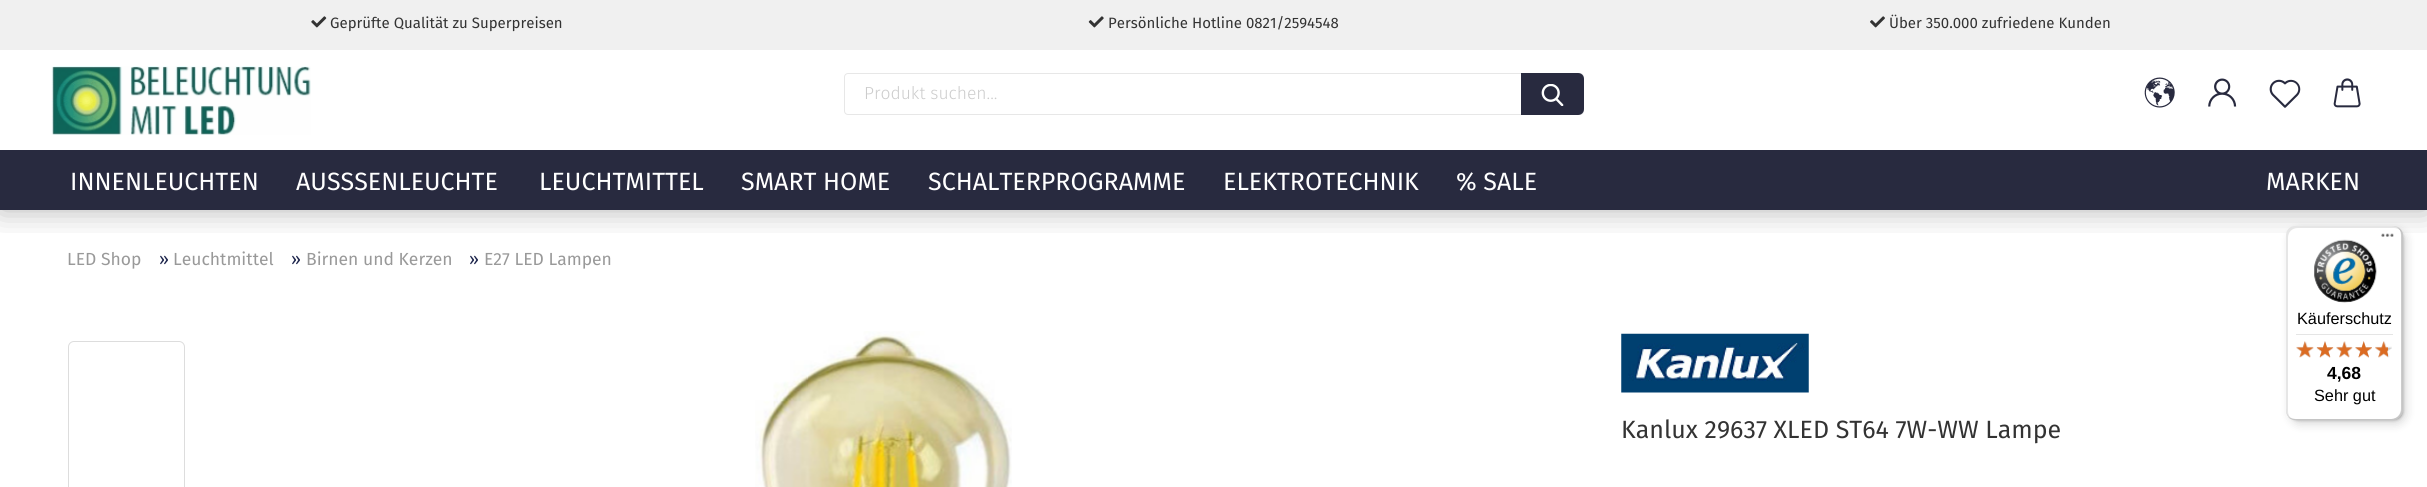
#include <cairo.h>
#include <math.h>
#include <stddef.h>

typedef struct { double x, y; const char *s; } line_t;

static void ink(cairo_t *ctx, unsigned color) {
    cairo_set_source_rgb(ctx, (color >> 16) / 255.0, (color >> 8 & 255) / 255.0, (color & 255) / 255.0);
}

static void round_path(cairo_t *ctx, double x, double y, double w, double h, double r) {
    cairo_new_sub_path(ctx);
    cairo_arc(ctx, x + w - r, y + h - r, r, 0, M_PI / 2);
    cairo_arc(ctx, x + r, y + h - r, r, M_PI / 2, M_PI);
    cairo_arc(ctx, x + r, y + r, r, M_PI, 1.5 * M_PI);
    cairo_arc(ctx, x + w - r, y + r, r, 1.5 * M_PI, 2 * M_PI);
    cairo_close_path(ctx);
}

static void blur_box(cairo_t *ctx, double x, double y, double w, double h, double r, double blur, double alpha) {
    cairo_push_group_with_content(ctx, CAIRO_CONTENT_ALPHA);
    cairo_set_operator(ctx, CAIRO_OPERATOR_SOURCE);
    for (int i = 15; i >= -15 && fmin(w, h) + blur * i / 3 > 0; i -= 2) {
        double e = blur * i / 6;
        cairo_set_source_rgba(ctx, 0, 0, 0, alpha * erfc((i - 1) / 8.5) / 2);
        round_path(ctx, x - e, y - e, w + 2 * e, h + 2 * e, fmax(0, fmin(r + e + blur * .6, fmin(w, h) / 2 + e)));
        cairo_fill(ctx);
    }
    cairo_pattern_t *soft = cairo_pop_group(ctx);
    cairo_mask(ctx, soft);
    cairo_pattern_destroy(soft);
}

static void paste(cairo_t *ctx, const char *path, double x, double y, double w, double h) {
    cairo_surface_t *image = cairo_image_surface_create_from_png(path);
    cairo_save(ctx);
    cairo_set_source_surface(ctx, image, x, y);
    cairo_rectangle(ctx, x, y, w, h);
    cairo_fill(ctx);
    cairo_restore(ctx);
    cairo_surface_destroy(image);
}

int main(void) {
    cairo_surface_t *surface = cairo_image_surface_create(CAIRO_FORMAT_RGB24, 2427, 487);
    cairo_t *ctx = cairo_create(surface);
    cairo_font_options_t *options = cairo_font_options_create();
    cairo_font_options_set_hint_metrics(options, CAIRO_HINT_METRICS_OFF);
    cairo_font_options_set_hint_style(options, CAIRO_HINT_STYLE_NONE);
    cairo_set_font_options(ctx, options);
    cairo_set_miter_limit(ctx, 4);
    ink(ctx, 0xFFFFFF);
    cairo_paint(ctx);
    cairo_save(ctx);
    cairo_rectangle(ctx, 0, 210, 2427, 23);
    cairo_clip(ctx);
    ink(ctx, 0x000000);
    blur_box(ctx, 0, 50, 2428, 160, 0, 15.5, 0.3);
    cairo_restore(ctx);
    ink(ctx, 0xF0F0F0);
    cairo_rectangle(ctx, 0, 0, 2427, 50);
    cairo_fill(ctx);
    paste(ctx, "media/1.png", 311, 16, 16, 12);
    cairo_select_font_face(ctx, "Fira Sans", CAIRO_FONT_SLANT_NORMAL, CAIRO_FONT_WEIGHT_NORMAL);
    cairo_set_font_size(ctx, 15);
    ink(ctx, 0x333333);
    cairo_move_to(ctx, 330, 28);
    cairo_show_text(ctx, "Geprüfte Qualität zu Superpreisen");
    paste(ctx, "media/2.png", 1088, 16, 16, 12);
    cairo_move_to(ctx, 1108, 28);
    cairo_show_text(ctx, "Persönliche Hotline 0821/2594548");
    paste(ctx, "media/3.png", 1870, 16, 15, 12);
    cairo_move_to(ctx, 1889, 28);
    cairo_show_text(ctx, "Über 350.000 zufriedene Kunden");
    paste(ctx, "media/4.png", 51, 66, 260, 69);
    round_path(ctx, 844.5, 73.5, 739, 41, 3.5);
    ink(ctx, 0xE7E7E7);
    cairo_set_line_width(ctx, 1);
    cairo_stroke(ctx);
    cairo_select_font_face(ctx, "Fira Sans Light", CAIRO_FONT_SLANT_NORMAL, CAIRO_FONT_WEIGHT_NORMAL);
    cairo_set_font_size(ctx, 17.5);
    ink(ctx, 0xCCCCCC);
    cairo_move_to(ctx, 864, 99);
    cairo_show_text(ctx, "Produkt suchen...");
    ink(ctx, 0x282A3F);
    cairo_new_path(ctx);
    cairo_move_to(ctx, 1521, 73);
    cairo_line_to(ctx, 1578, 73);
    cairo_curve_to(ctx, 1581.5, 73, 1584, 75.5, 1584, 79);
    cairo_line_to(ctx, 1584, 109);
    cairo_curve_to(ctx, 1584, 112.5, 1581.5, 115, 1578, 115);
    cairo_line_to(ctx, 1521, 115);
    cairo_close_path(ctx);
    cairo_fill(ctx);
    paste(ctx, "media/5.png", 1541, 84, 23, 22);
    paste(ctx, "media/6.png", 2144, 77, 31, 31);
    paste(ctx, "media/7.png", 2208, 78, 29, 29);
    paste(ctx, "media/8.png", 2269, 79, 32, 29);
    paste(ctx, "media/9.png", 2333, 78, 28, 30);
    cairo_rectangle(ctx, 0, 150, 2427, 60);
    cairo_fill(ctx);
    cairo_select_font_face(ctx, "Fira Sans", CAIRO_FONT_SLANT_NORMAL, CAIRO_FONT_WEIGHT_NORMAL);
    cairo_set_font_size(ctx, 25);
    ink(ctx, 0xFFFFFF);
    {
        static const line_t items[] = {
            {70, 190, "INNENLEUCHTEN"},
            {296, 190, "AUSSSENLEUCHTE"},
            {539, 190, "LEUCHTMITTEL"},
            {741, 190, "SMART HOME"},
            {928, 190, "SCHALTERPROGRAMME"},
            {1223, 190, "ELEKTROTECHNIK"},
            {1456, 190, "% SALE"},
            {2266, 190, "MARKEN"},
        };
        for (size_t i = 0; i < sizeof items / sizeof *items; i++) {
            cairo_move_to(ctx, items[i].x, items[i].y);
            cairo_show_text(ctx, items[i].s);
        }
    }
    cairo_set_font_size(ctx, 17.5);
    ink(ctx, 0x999999);
    cairo_move_to(ctx, 67, 265);
    cairo_show_text(ctx, "LED Shop");
    ink(ctx, 0x1C244B);
    cairo_move_to(ctx, 159, 265);
    cairo_show_text(ctx, "»");
    ink(ctx, 0x999999);
    cairo_move_to(ctx, 173, 265);
    cairo_show_text(ctx, "Leuchtmittel");
    ink(ctx, 0x1C244B);
    cairo_move_to(ctx, 291, 265);
    cairo_show_text(ctx, "»");
    ink(ctx, 0x999999);
    cairo_move_to(ctx, 306, 265);
    cairo_show_text(ctx, "Birnen und Kerzen");
    ink(ctx, 0x1C244B);
    cairo_move_to(ctx, 469, 265);
    cairo_show_text(ctx, "»");
    ink(ctx, 0x999999);
    cairo_move_to(ctx, 484, 265);
    cairo_show_text(ctx, "E27 LED Lampen");
    round_path(ctx, 68.5, 341.5, 116, 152, 5.5);
    ink(ctx, 0xDDDDDD);
    cairo_stroke(ctx);
    paste(ctx, "media/10.png", 755, 331, 257, 156);
    paste(ctx, "media/11.png", 1621, 333, 188, 60);
    cairo_set_font_size(ctx, 25);
    ink(ctx, 0x333333);
    cairo_move_to(ctx, 1621, 438);
    cairo_show_text(ctx, "Kanlux 29637 XLED ST64 7W-WW Lampe");
    ink(ctx, 0x000000);
    blur_box(ctx, 2290, 230, 116, 194, 10, 5, 0.15);
    blur_box(ctx, 2288, 228, 116, 193, 10, 1, 0.15);
    ink(ctx, 0xFFFFFF);
    round_path(ctx, 2286, 226, 117, 194, 10);
    cairo_fill(ctx);
    cairo_set_source_rgba(ctx, 0, 0, 0, 0.1);
    cairo_new_path(ctx);
    cairo_move_to(ctx, 2298, 228);
    cairo_line_to(ctx, 2394, 228);
    cairo_curve_to(ctx, 2397, 228, 2401, 230, 2402, 233);
    cairo_curve_to(ctx, 2401, 229, 2397, 226, 2393, 226);
    cairo_line_to(ctx, 2296, 226);
    cairo_curve_to(ctx, 2290, 226, 2286, 230, 2286, 236);
    cairo_line_to(ctx, 2286, 410);
    cairo_curve_to(ctx, 2286, 414, 2288, 417, 2292, 419);
    cairo_curve_to(ctx, 2289, 417, 2288, 414, 2288, 411);
    cairo_line_to(ctx, 2288, 238);
    cairo_curve_to(ctx, 2288, 232, 2292, 228, 2298, 228);
    cairo_close_path(ctx);
    cairo_fill(ctx);
    cairo_set_source_rgba(ctx, 0, 0, 0, 0.2);
    cairo_new_path(ctx);
    cairo_move_to(ctx, 2288, 417);
    cairo_curve_to(ctx, 2290, 419, 2293, 420, 2296, 420);
    cairo_line_to(ctx, 2393, 420);
    cairo_curve_to(ctx, 2399, 420, 2403, 416, 2403, 410);
    cairo_line_to(ctx, 2403, 236);
    cairo_curve_to(ctx, 2403, 232, 2401, 229, 2397, 227);
    cairo_curve_to(ctx, 2400, 229, 2401, 232, 2401, 235);
    cairo_line_to(ctx, 2401, 409);
    cairo_curve_to(ctx, 2401, 414, 2397, 419, 2391, 419);
    cairo_line_to(ctx, 2295, 419);
    cairo_curve_to(ctx, 2292, 419, 2290, 418, 2288, 417);
    cairo_close_path(ctx);
    cairo_fill(ctx);
    cairo_set_source_rgba(ctx, 0.196, 0.196, 0.196, 0.2);
    cairo_new_path(ctx);
    cairo_move_to(ctx, 2402, 236);
    cairo_curve_to(ctx, 2402, 230, 2397, 226, 2392, 226);
    cairo_line_to(ctx, 2393, 226);
    cairo_curve_to(ctx, 2399, 226, 2403, 230, 2403, 236);
    cairo_line_to(ctx, 2403, 410);
    cairo_curve_to(ctx, 2403, 416, 2399, 420, 2393, 420);
    cairo_line_to(ctx, 2296, 420);
    cairo_curve_to(ctx, 2290, 420, 2286, 416, 2286, 410);
    cairo_line_to(ctx, 2286, 409);
    cairo_curve_to(ctx, 2286, 415, 2290, 419, 2296, 419);
    cairo_line_to(ctx, 2392, 419);
    cairo_curve_to(ctx, 2397, 419, 2402, 415, 2402, 409);
    cairo_close_path(ctx);
    cairo_fill(ctx);
    cairo_set_source_rgba(ctx, 1, 1, 1, 0.3);
    cairo_new_path(ctx);
    cairo_move_to(ctx, 2402, 236);
    cairo_curve_to(ctx, 2402, 230, 2397, 226, 2392, 226);
    cairo_line_to(ctx, 2393, 226);
    cairo_curve_to(ctx, 2399, 226, 2403, 230, 2403, 236);
    cairo_line_to(ctx, 2403, 410);
    cairo_curve_to(ctx, 2403, 416, 2399, 420, 2393, 420);
    cairo_line_to(ctx, 2296, 420);
    cairo_curve_to(ctx, 2290, 420, 2286, 416, 2286, 410);
    cairo_line_to(ctx, 2286, 409);
    cairo_curve_to(ctx, 2286, 415, 2290, 419, 2296, 419);
    cairo_line_to(ctx, 2392, 419);
    cairo_curve_to(ctx, 2397, 419, 2402, 415, 2402, 409);
    cairo_close_path(ctx);
    cairo_fill(ctx);
    paste(ctx, "media/12.png", 2381, 233, 13, 4);
    paste(ctx, "media/13.png", 2314, 239, 63, 64);
    cairo_select_font_face(ctx, "Liberation Sans", CAIRO_FONT_SLANT_NORMAL, CAIRO_FONT_WEIGHT_NORMAL);
    cairo_set_font_size(ctx, 16.25);
    ink(ctx, 0x000000);
    cairo_move_to(ctx, 2297, 324);
    cairo_show_text(ctx, "Käuferschutz");
    ink(ctx, 0xE5E5E5);
    cairo_rectangle(ctx, 2296, 334, 97, 1);
    cairo_fill(ctx);
    paste(ctx, "media/14.png", 2296, 341, 18, 16);
    paste(ctx, "media/15.png", 2317, 341, 16, 17);
    paste(ctx, "media/16.png", 2336, 341, 16, 16);
    paste(ctx, "media/17.png", 2355, 341, 17, 17);
    paste(ctx, "media/18.png", 2375, 341, 17, 17);
    paste(ctx, "media/19.png", 2296, 341, 18, 17);
    paste(ctx, "media/20.png", 2316, 341, 18, 17);
    paste(ctx, "media/21.png", 2336, 341, 17, 17);
    paste(ctx, "media/22.png", 2355, 341, 17, 17);
    paste(ctx, "media/23.png", 2375, 341, 13, 17);
    cairo_select_font_face(ctx, "Liberation Sans", CAIRO_FONT_SLANT_NORMAL, CAIRO_FONT_WEIGHT_BOLD);
    cairo_set_font_size(ctx, 17.5);
    ink(ctx, 0x000000);
    cairo_move_to(ctx, 2327, 379);
    cairo_show_text(ctx, "4,68");
    cairo_select_font_face(ctx, "Liberation Sans", CAIRO_FONT_SLANT_NORMAL, CAIRO_FONT_WEIGHT_NORMAL);
    cairo_set_font_size(ctx, 16.25);
    cairo_move_to(ctx, 2314, 401);
    cairo_show_text(ctx, "Sehr gut");
    cairo_surface_write_to_png(surface, "image.png");
    cairo_font_options_destroy(options);
    cairo_destroy(ctx);
    cairo_surface_destroy(surface);
    return 0;
}
